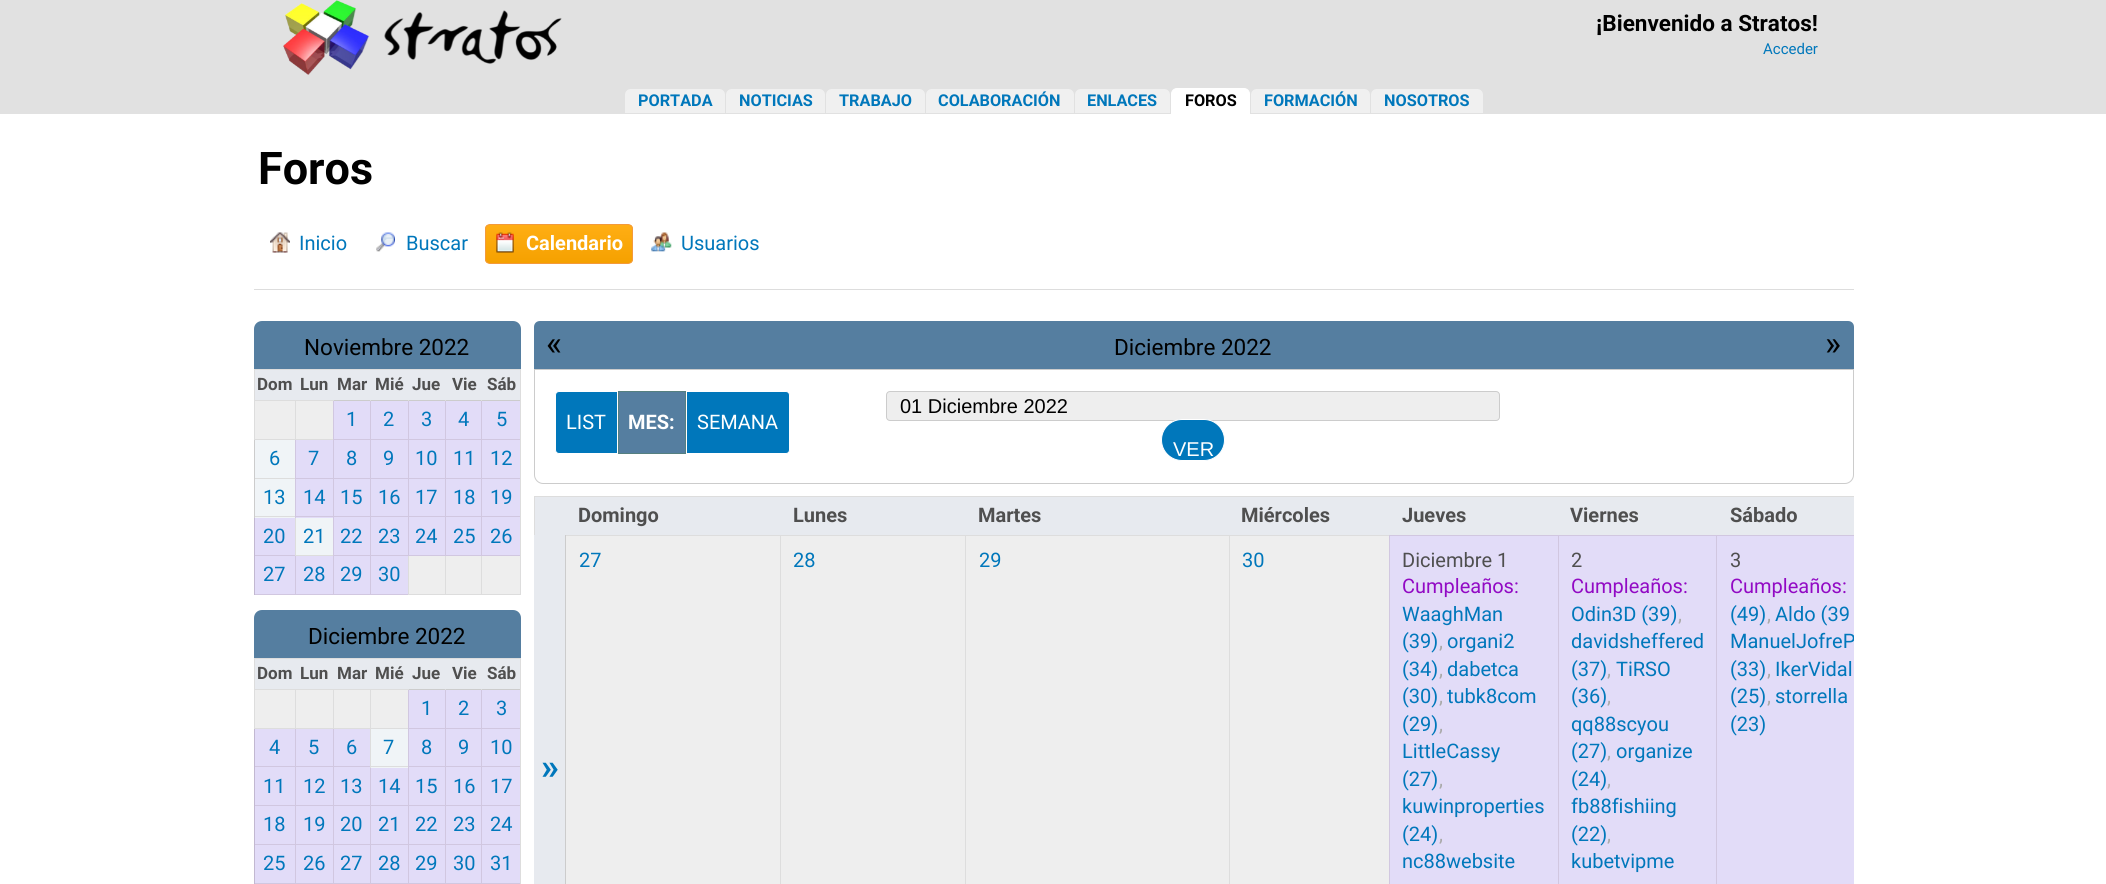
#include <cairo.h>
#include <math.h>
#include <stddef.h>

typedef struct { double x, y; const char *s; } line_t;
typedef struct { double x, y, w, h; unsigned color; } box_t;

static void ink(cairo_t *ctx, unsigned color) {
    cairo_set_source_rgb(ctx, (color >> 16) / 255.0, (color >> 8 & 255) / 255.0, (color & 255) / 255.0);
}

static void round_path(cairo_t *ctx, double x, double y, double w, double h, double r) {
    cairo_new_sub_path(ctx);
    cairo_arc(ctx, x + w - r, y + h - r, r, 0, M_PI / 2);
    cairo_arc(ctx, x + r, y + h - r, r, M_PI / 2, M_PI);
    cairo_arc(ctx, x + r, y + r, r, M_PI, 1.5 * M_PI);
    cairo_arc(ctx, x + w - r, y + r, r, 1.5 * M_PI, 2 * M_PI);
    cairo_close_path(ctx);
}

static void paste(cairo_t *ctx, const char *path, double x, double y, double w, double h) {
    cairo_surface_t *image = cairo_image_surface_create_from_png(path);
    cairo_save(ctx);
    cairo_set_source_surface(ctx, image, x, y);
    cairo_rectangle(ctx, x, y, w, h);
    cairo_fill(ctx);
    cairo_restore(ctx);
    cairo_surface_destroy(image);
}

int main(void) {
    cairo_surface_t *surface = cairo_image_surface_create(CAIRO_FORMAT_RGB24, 2106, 884);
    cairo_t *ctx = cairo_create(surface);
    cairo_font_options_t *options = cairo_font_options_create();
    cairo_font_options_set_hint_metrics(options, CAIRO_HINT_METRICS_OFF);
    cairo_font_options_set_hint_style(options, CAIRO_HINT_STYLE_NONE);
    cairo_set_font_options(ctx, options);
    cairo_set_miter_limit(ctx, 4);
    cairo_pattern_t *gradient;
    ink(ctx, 0xFFFFFF);
    cairo_paint(ctx);
    ink(ctx, 0xE1E1E1);
    cairo_rectangle(ctx, 0, 0, 2106, 114);
    cairo_fill(ctx);
    paste(ctx, "media/1.png", 283, 0, 279, 75);
    cairo_select_font_face(ctx, "Roboto", CAIRO_FONT_SLANT_NORMAL, CAIRO_FONT_WEIGHT_BOLD);
    cairo_set_font_size(ctx, 22.5);
    ink(ctx, 0x000000);
    cairo_move_to(ctx, 1596, 31);
    cairo_show_text(ctx, "¡Bienvenido a Stratos!");
    cairo_select_font_face(ctx, "Roboto", CAIRO_FONT_SLANT_NORMAL, CAIRO_FONT_WEIGHT_NORMAL);
    cairo_set_font_size(ctx, 15);
    ink(ctx, 0x0077BB);
    cairo_move_to(ctx, 1763, 54);
    cairo_show_text(ctx, "Acceder");
    ink(ctx, 0xF0F0F0);
    cairo_new_path(ctx);
    cairo_move_to(ctx, 631, 89);
    cairo_line_to(ctx, 719, 89);
    cairo_curve_to(ctx, 722.5, 89, 725, 91.5, 725, 95);
    cairo_line_to(ctx, 725, 113);
    cairo_line_to(ctx, 625, 113);
    cairo_line_to(ctx, 625, 95);
    cairo_curve_to(ctx, 625, 91.5, 627.5, 89, 631, 89);
    cairo_close_path(ctx);
    cairo_fill(ctx);
    cairo_select_font_face(ctx, "Roboto", CAIRO_FONT_SLANT_NORMAL, CAIRO_FONT_WEIGHT_BOLD);
    cairo_set_font_size(ctx, 16.25);
    ink(ctx, 0x0077BB);
    cairo_move_to(ctx, 638, 106);
    cairo_show_text(ctx, "PORTADA");
    ink(ctx, 0xF0F0F0);
    cairo_new_path(ctx);
    cairo_move_to(ctx, 732, 89);
    cairo_line_to(ctx, 819, 89);
    cairo_curve_to(ctx, 822.5, 89, 825, 91.5, 825, 95);
    cairo_line_to(ctx, 825, 113);
    cairo_line_to(ctx, 726, 113);
    cairo_line_to(ctx, 726, 95);
    cairo_curve_to(ctx, 726, 91.5, 728.5, 89, 732, 89);
    cairo_close_path(ctx);
    cairo_fill(ctx);
    ink(ctx, 0x0077BB);
    cairo_move_to(ctx, 739, 106);
    cairo_show_text(ctx, "NOTICIAS");
    ink(ctx, 0xF0F0F0);
    cairo_new_path(ctx);
    cairo_move_to(ctx, 832, 89);
    cairo_line_to(ctx, 919, 89);
    cairo_curve_to(ctx, 922.5, 89, 925, 91.5, 925, 95);
    cairo_line_to(ctx, 925, 113);
    cairo_line_to(ctx, 826, 113);
    cairo_line_to(ctx, 826, 95);
    cairo_curve_to(ctx, 826, 91.5, 828.5, 89, 832, 89);
    cairo_close_path(ctx);
    cairo_fill(ctx);
    ink(ctx, 0x0077BB);
    cairo_move_to(ctx, 839, 106);
    cairo_show_text(ctx, "TRABAJO");
    ink(ctx, 0xF0F0F0);
    cairo_new_path(ctx);
    cairo_move_to(ctx, 932, 89);
    cairo_line_to(ctx, 1068, 89);
    cairo_curve_to(ctx, 1071.5, 89, 1074, 91.5, 1074, 95);
    cairo_line_to(ctx, 1074, 113);
    cairo_line_to(ctx, 926, 113);
    cairo_line_to(ctx, 926, 95);
    cairo_curve_to(ctx, 926, 91.5, 928.5, 89, 932, 89);
    cairo_close_path(ctx);
    cairo_fill(ctx);
    ink(ctx, 0x0077BB);
    cairo_move_to(ctx, 938, 106);
    cairo_show_text(ctx, "COLABORACIÓN");
    ink(ctx, 0xF0F0F0);
    cairo_new_path(ctx);
    cairo_move_to(ctx, 1081, 89);
    cairo_line_to(ctx, 1164, 89);
    cairo_curve_to(ctx, 1167.5, 89, 1170, 91.5, 1170, 95);
    cairo_line_to(ctx, 1170, 113);
    cairo_line_to(ctx, 1075, 113);
    cairo_line_to(ctx, 1075, 95);
    cairo_curve_to(ctx, 1075, 91.5, 1077.5, 89, 1081, 89);
    cairo_close_path(ctx);
    cairo_fill(ctx);
    ink(ctx, 0x0077BB);
    cairo_move_to(ctx, 1087, 106);
    cairo_show_text(ctx, "ENLACES");
    ink(ctx, 0xFFFFFF);
    cairo_new_path(ctx);
    cairo_move_to(ctx, 1177, 88.5);
    cairo_line_to(ctx, 1244, 88.5);
    cairo_curve_to(ctx, 1247, 88.5, 1249.5, 91, 1249.5, 94);
    cairo_line_to(ctx, 1249.5, 114.5);
    cairo_line_to(ctx, 1171.5, 114.5);
    cairo_line_to(ctx, 1171.5, 94);
    cairo_curve_to(ctx, 1171.5, 91, 1174, 88.5, 1177, 88.5);
    cairo_close_path(ctx);
    cairo_fill_preserve(ctx);
    cairo_set_line_width(ctx, 1);
    cairo_stroke(ctx);
    ink(ctx, 0x000000);
    cairo_move_to(ctx, 1185, 106);
    cairo_show_text(ctx, "FOROS");
    ink(ctx, 0xF0F0F0);
    cairo_new_path(ctx);
    cairo_move_to(ctx, 1257, 89);
    cairo_line_to(ctx, 1364, 89);
    cairo_curve_to(ctx, 1367.5, 89, 1370, 91.5, 1370, 95);
    cairo_line_to(ctx, 1370, 113);
    cairo_line_to(ctx, 1251, 113);
    cairo_line_to(ctx, 1251, 95);
    cairo_curve_to(ctx, 1251, 91.5, 1253.5, 89, 1257, 89);
    cairo_close_path(ctx);
    cairo_fill(ctx);
    ink(ctx, 0x0077BB);
    cairo_move_to(ctx, 1264, 106);
    cairo_show_text(ctx, "FORMACIÓN");
    ink(ctx, 0xF0F0F0);
    cairo_new_path(ctx);
    cairo_move_to(ctx, 1377, 89);
    cairo_line_to(ctx, 1477, 89);
    cairo_curve_to(ctx, 1480.5, 89, 1483, 91.5, 1483, 95);
    cairo_line_to(ctx, 1483, 113);
    cairo_line_to(ctx, 1371, 113);
    cairo_line_to(ctx, 1371, 95);
    cairo_curve_to(ctx, 1371, 91.5, 1373.5, 89, 1377, 89);
    cairo_close_path(ctx);
    cairo_fill(ctx);
    ink(ctx, 0x0077BB);
    cairo_move_to(ctx, 1384, 106);
    cairo_show_text(ctx, "NOSOTROS");
    cairo_set_font_size(ctx, 45);
    ink(ctx, 0x000000);
    cairo_move_to(ctx, 258, 184);
    cairo_show_text(ctx, "Foros");
    paste(ctx, "media/2.png", 270, 232, 20, 21);
    cairo_select_font_face(ctx, "Roboto", CAIRO_FONT_SLANT_NORMAL, CAIRO_FONT_WEIGHT_NORMAL);
    cairo_set_font_size(ctx, 20);
    ink(ctx, 0x0077BB);
    cairo_move_to(ctx, 299, 250);
    cairo_show_text(ctx, "Inicio");
    paste(ctx, "media/3.png", 376, 232, 19, 20);
    cairo_move_to(ctx, 406, 250);
    cairo_show_text(ctx, "Buscar");
    cairo_save(ctx);
    round_path(ctx, 485, 224, 148, 40, 5);
    cairo_clip(ctx);
    gradient = cairo_pattern_create_linear(559, 225, 559, 263);
    cairo_pattern_add_color_stop_rgba(gradient, 0, 1, 0.682, 0.078, 1);
    cairo_pattern_add_color_stop_rgba(gradient, 1, 0.961, 0.631, 0, 1);
    cairo_set_source(ctx, gradient);
    cairo_pattern_destroy(gradient);
    cairo_rectangle(ctx, 485, 225, 148, 38);
    cairo_fill(ctx);
    cairo_restore(ctx);
    round_path(ctx, 485.5, 224.5, 147, 39, 4.5);
    ink(ctx, 0xF49A3A);
    cairo_stroke(ctx);
    paste(ctx, "media/4.png", 496, 232, 18, 21);
    cairo_select_font_face(ctx, "Roboto", CAIRO_FONT_SLANT_NORMAL, CAIRO_FONT_WEIGHT_BOLD);
    ink(ctx, 0xFFFFFF);
    cairo_move_to(ctx, 526, 250);
    cairo_show_text(ctx, "Calendario");
    paste(ctx, "media/5.png", 651, 232, 21, 20);
    cairo_select_font_face(ctx, "Roboto", CAIRO_FONT_SLANT_NORMAL, CAIRO_FONT_WEIGHT_NORMAL);
    ink(ctx, 0x0077BB);
    cairo_move_to(ctx, 681, 250);
    cairo_show_text(ctx, "Usuarios");
    ink(ctx, 0xDDDDDD);
    cairo_rectangle(ctx, 254, 289, 1600, 1);
    cairo_fill(ctx);
    ink(ctx, 0x557EA0);
    cairo_new_path(ctx);
    cairo_move_to(ctx, 262, 321);
    cairo_line_to(ctx, 513, 321);
    cairo_curve_to(ctx, 517.5, 321, 521, 324.5, 521, 329);
    cairo_line_to(ctx, 521, 369);
    cairo_line_to(ctx, 254, 369);
    cairo_line_to(ctx, 254, 329);
    cairo_curve_to(ctx, 254, 324.5, 257.5, 321, 262, 321);
    cairo_close_path(ctx);
    cairo_fill(ctx);
    cairo_set_font_size(ctx, 22.5);
    ink(ctx, 0x000000);
    cairo_move_to(ctx, 304, 355);
    cairo_show_text(ctx, "Noviembre 2022");
    {
        static const box_t items[] = {
            {255, 440, 78, 115, 0xF0F4F7},
            {371, 556, 37, 38, 0xE2DCF8},
            {334, 556, 36, 38, 0xE2DCF8},
            {296, 556, 37, 38, 0xE2DCF8},
            {255, 556, 40, 38, 0xE2DCF8},
            {446, 518, 74, 37, 0xE2DCF8},
            {409, 479, 36, 76, 0xE2DCF8},
            {371, 479, 37, 76, 0xE2DCF8},
            {334, 479, 36, 76, 0xE2DCF8},
            {255, 518, 40, 37, 0xE2DCF8},
            {446, 479, 74, 39, 0xE2DCF8},
            {296, 479, 37, 39, 0xE2DCF8},
            {446, 440, 74, 38, 0xE2DCF8},
            {409, 440, 36, 38, 0xE2DCF8},
            {371, 440, 37, 38, 0xE2DCF8},
            {334, 440, 36, 38, 0xE2DCF8},
            {296, 440, 37, 38, 0xE2DCF8},
            {446, 401, 74, 38, 0xE2DCF8},
            {409, 401, 36, 38, 0xE2DCF8},
            {371, 401, 37, 38, 0xE2DCF8},
            {334, 401, 36, 38, 0xE2DCF8},
            {254, 369, 267, 1, 0xDDDDDD},
            {520, 369, 1, 226, 0xDDDDDD},
            {409, 594, 112, 1, 0xDDDDDD},
            {254, 594, 154, 1, 0xD1C7E0},
            {254, 369, 1, 70, 0xDDDDDD},
            {255, 370, 265, 30, 0xE7EAEF},
        };
        for (size_t i = 0; i < sizeof items / sizeof *items; i++) {
            ink(ctx, items[i].color);
            cairo_rectangle(ctx, items[i].x, items[i].y, items[i].w, items[i].h);
            cairo_fill(ctx);
        }
    }
    cairo_select_font_face(ctx, "Roboto", CAIRO_FONT_SLANT_NORMAL, CAIRO_FONT_WEIGHT_BOLD);
    cairo_set_font_size(ctx, 17);
    ink(ctx, 0x4F4F4F);
    {
        static const line_t items[] = {
            {257, 390, "Dom"},
            {300, 390, "Lun"},
            {337, 390, "Mar"},
            {375, 390, "Mié"},
            {412, 390, "Jue"},
            {452, 390, "Vie"},
            {487, 390, "Sáb"},
        };
        for (size_t i = 0; i < sizeof items / sizeof *items; i++) {
            cairo_move_to(ctx, items[i].x, items[i].y);
            cairo_show_text(ctx, items[i].s);
        }
    }
    {
        static const box_t items[] = {
            {254, 400, 41, 1, 0xDDDDDD},
            {255, 401, 40, 38, 0xEEEEEE},
            {446, 556, 74, 38, 0xEEEEEE},
            {481, 555, 1, 40, 0xDDDDDD},
            {333, 555, 150, 1, 0xD1C7E0},
            {481, 401, 1, 155, 0xD1C7E0},
            {333, 439, 187, 1, 0xD1C7E0},
            {333, 401, 1, 39, 0xD1C7E0},
            {295, 439, 39, 1, 0xDDDDDD},
            {333, 400, 188, 1, 0xCCCCCC},
            {295, 400, 39, 1, 0xDDDDDD},
            {295, 400, 1, 40, 0xDDDDDD},
            {295, 478, 225, 1, 0xD1C7E0},
            {295, 440, 1, 39, 0xD1C7E0},
            {333, 518, 1, 77, 0xD1C7E0},
            {295, 555, 39, 1, 0xDDDDDD},
            {295, 516, 1, 40, 0xDDDDDD},
            {295, 516, 225, 1, 0xD1C7E0},
            {295, 479, 1, 39, 0xD1C7E0},
            {254, 516, 42, 1, 0xDDDDDD},
            {254, 478, 1, 40, 0xCCCCCC},
            {254, 478, 42, 1, 0xDDDDDD},
            {254, 439, 1, 40, 0xCCCCCC},
            {254, 439, 42, 1, 0xDDDDDD},
            {296, 401, 37, 38, 0xEEEEEE},
            {333, 439, 1, 1, 0xD1C7E0},
            {370, 400, 1, 1, 0xDDDDDD},
            {370, 401, 1, 39, 0xD1C7E0},
        };
        for (size_t i = 0; i < sizeof items / sizeof *items; i++) {
            ink(ctx, items[i].color);
            cairo_rectangle(ctx, items[i].x, items[i].y, items[i].w, items[i].h);
            cairo_fill(ctx);
        }
    }
    cairo_select_font_face(ctx, "Roboto", CAIRO_FONT_SLANT_NORMAL, CAIRO_FONT_WEIGHT_NORMAL);
    cairo_set_font_size(ctx, 20);
    ink(ctx, 0x0077BB);
    cairo_move_to(ctx, 346, 426);
    cairo_show_text(ctx, "1");
    ink(ctx, 0xDDDDDD);
    cairo_rectangle(ctx, 408, 400, 1, 1);
    cairo_fill(ctx);
    ink(ctx, 0xD1C7E0);
    cairo_rectangle(ctx, 408, 401, 1, 39);
    cairo_fill(ctx);
    ink(ctx, 0x0077BB);
    cairo_move_to(ctx, 383, 426);
    cairo_show_text(ctx, "2");
    ink(ctx, 0xDDDDDD);
    cairo_rectangle(ctx, 445, 400, 1, 1);
    cairo_fill(ctx);
    ink(ctx, 0xD1C7E0);
    cairo_rectangle(ctx, 445, 401, 1, 39);
    cairo_fill(ctx);
    ink(ctx, 0x0077BB);
    cairo_move_to(ctx, 421, 426);
    cairo_show_text(ctx, "3");
    ink(ctx, 0xDDDDDD);
    cairo_rectangle(ctx, 481, 400, 1, 1);
    cairo_fill(ctx);
    ink(ctx, 0x0077BB);
    cairo_move_to(ctx, 458, 426);
    cairo_show_text(ctx, "4");
    ink(ctx, 0xDDDDDD);
    cairo_rectangle(ctx, 520, 400, 1, 1);
    cairo_fill(ctx);
    ink(ctx, 0x0077BB);
    cairo_move_to(ctx, 496, 426);
    cairo_show_text(ctx, "5");
    ink(ctx, 0xD1C7E0);
    cairo_rectangle(ctx, 295, 478, 1, 1);
    cairo_fill(ctx);
    ink(ctx, 0x0077BB);
    cairo_move_to(ctx, 269, 465);
    cairo_show_text(ctx, "6");
    ink(ctx, 0xD1C7E0);
    cairo_rectangle(ctx, 333, 440, 1, 39);
    cairo_fill(ctx);
    ink(ctx, 0x0077BB);
    cairo_move_to(ctx, 308, 465);
    cairo_show_text(ctx, "7");
    ink(ctx, 0xD1C7E0);
    cairo_rectangle(ctx, 370, 440, 1, 39);
    cairo_fill(ctx);
    ink(ctx, 0x0077BB);
    cairo_move_to(ctx, 346, 465);
    cairo_show_text(ctx, "8");
    ink(ctx, 0xD1C7E0);
    cairo_rectangle(ctx, 408, 440, 1, 39);
    cairo_fill(ctx);
    ink(ctx, 0x0077BB);
    cairo_move_to(ctx, 383, 465);
    cairo_show_text(ctx, "9");
    ink(ctx, 0xD1C7E0);
    cairo_rectangle(ctx, 445, 440, 1, 39);
    cairo_fill(ctx);
    ink(ctx, 0x0077BB);
    {
        static const line_t items[] = {
            {415, 465, "10"},
            {453, 465, "11"},
            {490, 465, "12"},
        };
        for (size_t i = 0; i < sizeof items / sizeof *items; i++) {
            cairo_move_to(ctx, items[i].x, items[i].y);
            cairo_show_text(ctx, items[i].s);
        }
    }
    ink(ctx, 0xD1C7E0);
    cairo_rectangle(ctx, 295, 516, 1, 1);
    cairo_fill(ctx);
    ink(ctx, 0x0077BB);
    cairo_move_to(ctx, 263, 504);
    cairo_show_text(ctx, "13");
    ink(ctx, 0xD1C7E0);
    cairo_rectangle(ctx, 333, 479, 1, 39);
    cairo_fill(ctx);
    ink(ctx, 0x0077BB);
    cairo_move_to(ctx, 303, 504);
    cairo_show_text(ctx, "14");
    ink(ctx, 0xD1C7E0);
    cairo_rectangle(ctx, 370, 479, 1, 39);
    cairo_fill(ctx);
    ink(ctx, 0x0077BB);
    cairo_move_to(ctx, 340, 504);
    cairo_show_text(ctx, "15");
    ink(ctx, 0xD1C7E0);
    cairo_rectangle(ctx, 408, 479, 1, 39);
    cairo_fill(ctx);
    ink(ctx, 0x0077BB);
    cairo_move_to(ctx, 378, 504);
    cairo_show_text(ctx, "16");
    ink(ctx, 0xD1C7E0);
    cairo_rectangle(ctx, 445, 479, 1, 39);
    cairo_fill(ctx);
    ink(ctx, 0x0077BB);
    {
        static const line_t items[] = {
            {415, 504, "17"},
            {453, 504, "18"},
            {490, 504, "19"},
        };
        for (size_t i = 0; i < sizeof items / sizeof *items; i++) {
            cairo_move_to(ctx, items[i].x, items[i].y);
            cairo_show_text(ctx, items[i].s);
        }
    }
    ink(ctx, 0xD1C7E0);
    cairo_rectangle(ctx, 254, 555, 41, 1);
    cairo_fill(ctx);
    ink(ctx, 0xC2B8D1);
    cairo_rectangle(ctx, 254, 518, 1, 38);
    cairo_fill(ctx);
    ink(ctx, 0x0077BB);
    cairo_move_to(ctx, 263, 543);
    cairo_show_text(ctx, "20");
    ink(ctx, 0xD1C7E0);
    cairo_rectangle(ctx, 333, 555, 1, 1);
    cairo_fill(ctx);
    ink(ctx, 0x0077BB);
    cairo_move_to(ctx, 303, 543);
    cairo_show_text(ctx, "21");
    cairo_move_to(ctx, 340, 543);
    cairo_show_text(ctx, "22");
    ink(ctx, 0xDDDDDD);
    cairo_rectangle(ctx, 408, 555, 1, 40);
    cairo_fill(ctx);
    ink(ctx, 0xD1C7E0);
    cairo_rectangle(ctx, 408, 518, 1, 38);
    cairo_fill(ctx);
    ink(ctx, 0x0077BB);
    cairo_move_to(ctx, 378, 543);
    cairo_show_text(ctx, "23");
    ink(ctx, 0xDDDDDD);
    cairo_rectangle(ctx, 445, 555, 1, 40);
    cairo_fill(ctx);
    ink(ctx, 0xD1C7E0);
    cairo_rectangle(ctx, 445, 518, 1, 38);
    cairo_fill(ctx);
    ink(ctx, 0x0077BB);
    {
        static const line_t items[] = {
            {415, 543, "24"},
            {453, 543, "25"},
            {490, 543, "26"},
        };
        for (size_t i = 0; i < sizeof items / sizeof *items; i++) {
            cairo_move_to(ctx, items[i].x, items[i].y);
            cairo_show_text(ctx, items[i].s);
        }
    }
    ink(ctx, 0xD1C7E0);
    cairo_rectangle(ctx, 295, 556, 1, 39);
    cairo_fill(ctx);
    ink(ctx, 0xC2B8D1);
    cairo_rectangle(ctx, 254, 556, 1, 39);
    cairo_fill(ctx);
    ink(ctx, 0x0077BB);
    cairo_move_to(ctx, 263, 581);
    cairo_show_text(ctx, "27");
    cairo_move_to(ctx, 303, 581);
    cairo_show_text(ctx, "28");
    ink(ctx, 0xD1C7E0);
    cairo_rectangle(ctx, 370, 518, 1, 77);
    cairo_fill(ctx);
    ink(ctx, 0x0077BB);
    cairo_move_to(ctx, 340, 581);
    cairo_show_text(ctx, "29");
    cairo_move_to(ctx, 378, 581);
    cairo_show_text(ctx, "30");
    ink(ctx, 0xEEEEEE);
    cairo_rectangle(ctx, 409, 556, 36, 38);
    cairo_fill(ctx);
    ink(ctx, 0xD1C7E0);
    cairo_rectangle(ctx, 483, 555, 37, 1);
    cairo_fill(ctx);
    ink(ctx, 0x557EA0);
    cairo_new_path(ctx);
    cairo_move_to(ctx, 262, 610);
    cairo_line_to(ctx, 513, 610);
    cairo_curve_to(ctx, 517.5, 610, 521, 613.5, 521, 618);
    cairo_line_to(ctx, 521, 658);
    cairo_line_to(ctx, 254, 658);
    cairo_line_to(ctx, 254, 618);
    cairo_curve_to(ctx, 254, 613.5, 257.5, 610, 262, 610);
    cairo_close_path(ctx);
    cairo_fill(ctx);
    cairo_set_font_size(ctx, 22.5);
    ink(ctx, 0x000000);
    cairo_move_to(ctx, 308, 644);
    cairo_show_text(ctx, "Diciembre 2022");
    {
        static const box_t items[] = {
            {371, 729, 37, 39, 0xF0F4F7},
            {446, 845, 74, 38, 0xE2DCF8},
            {409, 845, 36, 38, 0xE2DCF8},
            {371, 845, 37, 38, 0xE2DCF8},
            {334, 845, 36, 38, 0xE2DCF8},
            {296, 845, 37, 38, 0xE2DCF8},
            {255, 845, 40, 38, 0xE2DCF8},
            {446, 806, 74, 38, 0xE2DCF8},
            {409, 806, 36, 38, 0xE2DCF8},
            {371, 806, 37, 38, 0xE2DCF8},
            {334, 806, 36, 38, 0xE2DCF8},
            {296, 806, 37, 38, 0xE2DCF8},
            {255, 806, 40, 38, 0xE2DCF8},
            {446, 768, 74, 37, 0xE2DCF8},
            {409, 729, 36, 76, 0xE2DCF8},
            {371, 768, 37, 37, 0xE2DCF8},
            {334, 729, 36, 76, 0xE2DCF8},
            {296, 729, 37, 76, 0xE2DCF8},
            {255, 729, 40, 76, 0xE2DCF8},
            {446, 729, 74, 39, 0xE2DCF8},
            {446, 690, 74, 38, 0xE2DCF8},
            {409, 690, 36, 38, 0xE2DCF8},
            {254, 658, 267, 1, 0xDDDDDD},
            {520, 658, 1, 31, 0xDDDDDD},
            {254, 883, 266, 1, 0xD1C7E0},
            {254, 658, 1, 70, 0xDDDDDD},
            {255, 659, 265, 30, 0xE7EAEF},
        };
        for (size_t i = 0; i < sizeof items / sizeof *items; i++) {
            ink(ctx, items[i].color);
            cairo_rectangle(ctx, items[i].x, items[i].y, items[i].w, items[i].h);
            cairo_fill(ctx);
        }
    }
    cairo_select_font_face(ctx, "Roboto", CAIRO_FONT_SLANT_NORMAL, CAIRO_FONT_WEIGHT_BOLD);
    cairo_set_font_size(ctx, 17);
    ink(ctx, 0x4F4F4F);
    {
        static const line_t items[] = {
            {257, 679, "Dom"},
            {300, 679, "Lun"},
            {337, 679, "Mar"},
            {375, 679, "Mié"},
            {412, 679, "Jue"},
            {452, 679, "Vie"},
            {487, 679, "Sáb"},
        };
        for (size_t i = 0; i < sizeof items / sizeof *items; i++) {
            cairo_move_to(ctx, items[i].x, items[i].y);
            cairo_show_text(ctx, items[i].s);
        }
    }
    {
        static const box_t items[] = {
            {254, 689, 116, 1, 0xDDDDDD},
            {255, 690, 40, 38, 0xEEEEEE},
            {481, 690, 1, 194, 0xD1C7E0},
            {408, 728, 112, 1, 0xD1C7E0},
            {408, 690, 1, 39, 0xD1C7E0},
            {408, 766, 112, 1, 0xD1C7E0},
            {408, 729, 1, 39, 0xD1C7E0},
            {370, 766, 39, 1, 0xDDDDDD},
            {370, 728, 1, 40, 0xDDDDDD},
            {370, 728, 39, 1, 0xDDDDDD},
            {408, 689, 113, 1, 0xCCCCCC},
            {370, 689, 39, 1, 0xDDDDDD},
            {370, 689, 1, 40, 0xDDDDDD},
            {333, 728, 38, 1, 0xDDDDDD},
            {333, 689, 1, 40, 0xDDDDDD},
            {295, 728, 39, 1, 0xDDDDDD},
            {295, 689, 1, 40, 0xDDDDDD},
            {254, 728, 42, 1, 0xDDDDDD},
            {296, 690, 37, 38, 0xEEEEEE},
            {334, 690, 36, 38, 0xEEEEEE},
            {371, 690, 37, 38, 0xEEEEEE},
            {408, 728, 1, 1, 0xD1C7E0},
            {445, 689, 1, 1, 0xDDDDDD},
            {445, 690, 1, 39, 0xD1C7E0},
        };
        for (size_t i = 0; i < sizeof items / sizeof *items; i++) {
            ink(ctx, items[i].color);
            cairo_rectangle(ctx, items[i].x, items[i].y, items[i].w, items[i].h);
            cairo_fill(ctx);
        }
    }
    cairo_select_font_face(ctx, "Roboto", CAIRO_FONT_SLANT_NORMAL, CAIRO_FONT_WEIGHT_NORMAL);
    cairo_set_font_size(ctx, 20);
    ink(ctx, 0x0077BB);
    cairo_move_to(ctx, 421, 715);
    cairo_show_text(ctx, "1");
    ink(ctx, 0xDDDDDD);
    cairo_rectangle(ctx, 481, 689, 1, 1);
    cairo_fill(ctx);
    ink(ctx, 0x0077BB);
    cairo_move_to(ctx, 458, 715);
    cairo_show_text(ctx, "2");
    ink(ctx, 0xDDDDDD);
    cairo_rectangle(ctx, 520, 728, 1, 156);
    cairo_fill(ctx);
    cairo_rectangle(ctx, 520, 689, 1, 40);
    cairo_fill(ctx);
    ink(ctx, 0x0077BB);
    cairo_move_to(ctx, 496, 715);
    cairo_show_text(ctx, "3");
    {
        static const box_t items[] = {
            {254, 766, 116, 1, 0xD1C7E0},
            {295, 729, 1, 39, 0xD1C7E0},
            {254, 729, 1, 39, 0xC2B8D1},
        };
        for (size_t i = 0; i < sizeof items / sizeof *items; i++) {
            ink(ctx, items[i].color);
            cairo_rectangle(ctx, items[i].x, items[i].y, items[i].w, items[i].h);
            cairo_fill(ctx);
        }
    }
    ink(ctx, 0x0077BB);
    cairo_move_to(ctx, 269, 754);
    cairo_show_text(ctx, "4");
    ink(ctx, 0xD1C7E0);
    cairo_rectangle(ctx, 333, 729, 1, 39);
    cairo_fill(ctx);
    ink(ctx, 0x0077BB);
    cairo_move_to(ctx, 308, 754);
    cairo_show_text(ctx, "5");
    cairo_move_to(ctx, 346, 754);
    cairo_show_text(ctx, "6");
    ink(ctx, 0xD1C7E0);
    cairo_rectangle(ctx, 408, 766, 1, 1);
    cairo_fill(ctx);
    ink(ctx, 0x0077BB);
    cairo_move_to(ctx, 383, 754);
    cairo_show_text(ctx, "7");
    ink(ctx, 0xD1C7E0);
    cairo_rectangle(ctx, 445, 729, 1, 39);
    cairo_fill(ctx);
    ink(ctx, 0x0077BB);
    {
        static const line_t items[] = {
            {421, 754, "8"},
            {458, 754, "9"},
            {490, 754, "10"},
        };
        for (size_t i = 0; i < sizeof items / sizeof *items; i++) {
            cairo_move_to(ctx, items[i].x, items[i].y);
            cairo_show_text(ctx, items[i].s);
        }
    }
    {
        static const box_t items[] = {
            {254, 805, 266, 1, 0xD1C7E0},
            {295, 768, 1, 38, 0xD1C7E0},
            {254, 768, 1, 38, 0xC2B8D1},
        };
        for (size_t i = 0; i < sizeof items / sizeof *items; i++) {
            ink(ctx, items[i].color);
            cairo_rectangle(ctx, items[i].x, items[i].y, items[i].w, items[i].h);
            cairo_fill(ctx);
        }
    }
    ink(ctx, 0x0077BB);
    cairo_move_to(ctx, 263, 793);
    cairo_show_text(ctx, "11");
    ink(ctx, 0xD1C7E0);
    cairo_rectangle(ctx, 333, 768, 1, 38);
    cairo_fill(ctx);
    ink(ctx, 0x0077BB);
    cairo_move_to(ctx, 303, 793);
    cairo_show_text(ctx, "12");
    ink(ctx, 0xD1C7E0);
    cairo_rectangle(ctx, 370, 768, 1, 38);
    cairo_fill(ctx);
    ink(ctx, 0x0077BB);
    cairo_move_to(ctx, 340, 793);
    cairo_show_text(ctx, "13");
    ink(ctx, 0xD1C7E0);
    cairo_rectangle(ctx, 408, 768, 1, 38);
    cairo_fill(ctx);
    ink(ctx, 0x0077BB);
    cairo_move_to(ctx, 378, 793);
    cairo_show_text(ctx, "14");
    ink(ctx, 0xD1C7E0);
    cairo_rectangle(ctx, 445, 768, 1, 38);
    cairo_fill(ctx);
    ink(ctx, 0x0077BB);
    {
        static const line_t items[] = {
            {415, 793, "15"},
            {453, 793, "16"},
            {490, 793, "17"},
        };
        for (size_t i = 0; i < sizeof items / sizeof *items; i++) {
            cairo_move_to(ctx, items[i].x, items[i].y);
            cairo_show_text(ctx, items[i].s);
        }
    }
    {
        static const box_t items[] = {
            {254, 844, 266, 1, 0xD1C7E0},
            {295, 806, 1, 39, 0xD1C7E0},
            {254, 806, 1, 39, 0xC2B8D1},
        };
        for (size_t i = 0; i < sizeof items / sizeof *items; i++) {
            ink(ctx, items[i].color);
            cairo_rectangle(ctx, items[i].x, items[i].y, items[i].w, items[i].h);
            cairo_fill(ctx);
        }
    }
    ink(ctx, 0x0077BB);
    cairo_move_to(ctx, 263, 831);
    cairo_show_text(ctx, "18");
    ink(ctx, 0xD1C7E0);
    cairo_rectangle(ctx, 333, 806, 1, 39);
    cairo_fill(ctx);
    ink(ctx, 0x0077BB);
    cairo_move_to(ctx, 303, 831);
    cairo_show_text(ctx, "19");
    ink(ctx, 0xD1C7E0);
    cairo_rectangle(ctx, 370, 806, 1, 39);
    cairo_fill(ctx);
    ink(ctx, 0x0077BB);
    cairo_move_to(ctx, 340, 831);
    cairo_show_text(ctx, "20");
    ink(ctx, 0xD1C7E0);
    cairo_rectangle(ctx, 408, 806, 1, 39);
    cairo_fill(ctx);
    ink(ctx, 0x0077BB);
    cairo_move_to(ctx, 378, 831);
    cairo_show_text(ctx, "21");
    ink(ctx, 0xD1C7E0);
    cairo_rectangle(ctx, 445, 806, 1, 39);
    cairo_fill(ctx);
    ink(ctx, 0x0077BB);
    {
        static const line_t items[] = {
            {415, 831, "22"},
            {453, 831, "23"},
            {490, 831, "24"},
        };
        for (size_t i = 0; i < sizeof items / sizeof *items; i++) {
            cairo_move_to(ctx, items[i].x, items[i].y);
            cairo_show_text(ctx, items[i].s);
        }
    }
    ink(ctx, 0xD1C7E0);
    cairo_rectangle(ctx, 295, 845, 1, 39);
    cairo_fill(ctx);
    ink(ctx, 0xC2B8D1);
    cairo_rectangle(ctx, 254, 845, 1, 39);
    cairo_fill(ctx);
    ink(ctx, 0x0077BB);
    cairo_move_to(ctx, 263, 870);
    cairo_show_text(ctx, "25");
    ink(ctx, 0xD1C7E0);
    cairo_rectangle(ctx, 333, 845, 1, 39);
    cairo_fill(ctx);
    ink(ctx, 0x0077BB);
    cairo_move_to(ctx, 303, 870);
    cairo_show_text(ctx, "26");
    ink(ctx, 0xD1C7E0);
    cairo_rectangle(ctx, 370, 845, 1, 39);
    cairo_fill(ctx);
    ink(ctx, 0x0077BB);
    cairo_move_to(ctx, 340, 870);
    cairo_show_text(ctx, "27");
    ink(ctx, 0xD1C7E0);
    cairo_rectangle(ctx, 408, 845, 1, 39);
    cairo_fill(ctx);
    ink(ctx, 0x0077BB);
    cairo_move_to(ctx, 378, 870);
    cairo_show_text(ctx, "28");
    ink(ctx, 0xD1C7E0);
    cairo_rectangle(ctx, 445, 845, 1, 39);
    cairo_fill(ctx);
    ink(ctx, 0x0077BB);
    {
        static const line_t items[] = {
            {415, 870, "29"},
            {453, 870, "30"},
            {490, 870, "31"},
        };
        for (size_t i = 0; i < sizeof items / sizeof *items; i++) {
            cairo_move_to(ctx, items[i].x, items[i].y);
            cairo_show_text(ctx, items[i].s);
        }
    }
    ink(ctx, 0x557EA0);
    cairo_new_path(ctx);
    cairo_move_to(ctx, 540, 321);
    cairo_line_to(ctx, 1848, 321);
    cairo_curve_to(ctx, 1851.5, 321, 1854, 323.5, 1854, 327);
    cairo_line_to(ctx, 1854, 369);
    cairo_line_to(ctx, 534, 369);
    cairo_line_to(ctx, 534, 327);
    cairo_curve_to(ctx, 534, 323.5, 536.5, 321, 540, 321);
    cairo_close_path(ctx);
    cairo_fill(ctx);
    cairo_set_font_size(ctx, 34);
    ink(ctx, 0x000000);
    cairo_move_to(ctx, 546, 355);
    cairo_show_text(ctx, "«");
    cairo_set_font_size(ctx, 22.5);
    cairo_move_to(ctx, 1114, 355);
    cairo_show_text(ctx, "Diciembre 2022");
    cairo_set_font_size(ctx, 34);
    cairo_move_to(ctx, 1825, 355);
    cairo_show_text(ctx, "»");
    cairo_new_path(ctx);
    cairo_move_to(ctx, 534.5, 369.5);
    cairo_line_to(ctx, 1853.5, 369.5);
    cairo_line_to(ctx, 1853.5, 475);
    cairo_curve_to(ctx, 1853.5, 479.5, 1849.5, 483.5, 1845, 483.5);
    cairo_line_to(ctx, 543, 483.5);
    cairo_curve_to(ctx, 538.5, 483.5, 534.5, 479.5, 534.5, 475);
    cairo_close_path(ctx);
    ink(ctx, 0xCCCCCC);
    cairo_stroke(ctx);
    ink(ctx, 0x0077BB);
    cairo_new_path(ctx);
    cairo_move_to(ctx, 559, 391.5);
    cairo_line_to(ctx, 617.5, 391.5);
    cairo_line_to(ctx, 617.5, 453.5);
    cairo_line_to(ctx, 559, 453.5);
    cairo_curve_to(ctx, 557, 453.5, 555.5, 452, 555.5, 450);
    cairo_line_to(ctx, 555.5, 395);
    cairo_curve_to(ctx, 555.5, 393, 557, 391.5, 559, 391.5);
    cairo_close_path(ctx);
    cairo_fill_preserve(ctx);
    ink(ctx, 0xFFFFFF);
    cairo_stroke(ctx);
    cairo_set_font_size(ctx, 20);
    cairo_move_to(ctx, 566, 429);
    cairo_show_text(ctx, "LIST");
    ink(ctx, 0x557EA0);
    cairo_rectangle(ctx, 618.5, 391.5, 67, 62);
    cairo_fill_preserve(ctx);
    ink(ctx, 0x558080);
    cairo_stroke(ctx);
    cairo_select_font_face(ctx, "Roboto", CAIRO_FONT_SLANT_NORMAL, CAIRO_FONT_WEIGHT_BOLD);
    ink(ctx, 0xFFFFFF);
    cairo_move_to(ctx, 628, 429);
    cairo_show_text(ctx, "MES:");
    ink(ctx, 0x0077BB);
    cairo_new_path(ctx);
    cairo_move_to(ctx, 686.5, 391.5);
    cairo_line_to(ctx, 786, 391.5);
    cairo_curve_to(ctx, 788, 391.5, 789.5, 393, 789.5, 395);
    cairo_line_to(ctx, 789.5, 450);
    cairo_curve_to(ctx, 789.5, 452, 788, 453.5, 786, 453.5);
    cairo_line_to(ctx, 686.5, 453.5);
    cairo_close_path(ctx);
    cairo_fill_preserve(ctx);
    ink(ctx, 0xFFFFFF);
    cairo_stroke(ctx);
    cairo_select_font_face(ctx, "Roboto", CAIRO_FONT_SLANT_NORMAL, CAIRO_FONT_WEIGHT_NORMAL);
    cairo_move_to(ctx, 697, 429);
    cairo_show_text(ctx, "SEMANA");
    ink(ctx, 0xEEEEEE);
    round_path(ctx, 886.5, 391.5, 613, 29, 3.5);
    cairo_fill_preserve(ctx);
    ink(ctx, 0xCCCCCC);
    cairo_stroke(ctx);
    cairo_select_font_face(ctx, "Liberation Sans", CAIRO_FONT_SLANT_NORMAL, CAIRO_FONT_WEIGHT_NORMAL);
    ink(ctx, 0x000000);
    cairo_move_to(ctx, 900, 413);
    cairo_show_text(ctx, "01 Diciembre 2022");
    ink(ctx, 0x0077BB);
    round_path(ctx, 1161.5, 419.5, 63, 41, 20.5);
    cairo_fill_preserve(ctx);
    ink(ctx, 0xFFFFFF);
    cairo_stroke(ctx);
    cairo_move_to(ctx, 1173, 456);
    cairo_show_text(ctx, "VER");
    {
        static const box_t items[] = {
            {1559, 536, 295, 348, 0xE2DCF8},
            {1390, 536, 168, 348, 0xE2DCF8},
            {534, 496, 1320, 1, 0xDDDDDD},
            {534, 496, 1, 39, 0xDDDDDD},
            {535, 497, 1319, 38, 0xE7EAEF},
        };
        for (size_t i = 0; i < sizeof items / sizeof *items; i++) {
            ink(ctx, items[i].color);
            cairo_rectangle(ctx, items[i].x, items[i].y, items[i].w, items[i].h);
            cairo_fill(ctx);
        }
    }
    cairo_select_font_face(ctx, "Roboto", CAIRO_FONT_SLANT_NORMAL, CAIRO_FONT_WEIGHT_BOLD);
    ink(ctx, 0x4F4F4F);
    {
        static const line_t items[] = {
            {578, 522, "Domingo"},
            {793, 522, "Lunes"},
            {978, 522, "Martes"},
            {1241, 522, "Miércoles"},
            {1402, 522, "Jueves"},
            {1570, 522, "Viernes"},
            {1730, 522, "Sábado"},
        };
        for (size_t i = 0; i < sizeof items / sizeof *items; i++) {
            cairo_move_to(ctx, items[i].x, items[i].y);
            cairo_show_text(ctx, items[i].s);
        }
    }
    {
        static const box_t items[] = {
            {566, 536, 214, 348, 0xEEEEEE},
            {1389, 535, 465, 1, 0xD1C7E0},
            {1229, 535, 161, 1, 0xDDDDDD},
            {1229, 535, 1, 349, 0xDDDDDD},
            {965, 535, 265, 1, 0xDDDDDD},
            {965, 535, 1, 349, 0xDDDDDD},
            {780, 535, 186, 1, 0xDDDDDD},
            {780, 535, 1, 349, 0xDDDDDD},
            {565, 535, 216, 1, 0xDDDDDD},
        };
        for (size_t i = 0; i < sizeof items / sizeof *items; i++) {
            ink(ctx, items[i].color);
            cairo_rectangle(ctx, items[i].x, items[i].y, items[i].w, items[i].h);
            cairo_fill(ctx);
        }
    }
    cairo_select_font_face(ctx, "Roboto", CAIRO_FONT_SLANT_NORMAL, CAIRO_FONT_WEIGHT_NORMAL);
    ink(ctx, 0x0077BB);
    cairo_move_to(ctx, 579, 567);
    cairo_show_text(ctx, "27");
    ink(ctx, 0xEEEEEE);
    cairo_rectangle(ctx, 781, 536, 184, 348);
    cairo_fill(ctx);
    ink(ctx, 0x0077BB);
    cairo_move_to(ctx, 793, 567);
    cairo_show_text(ctx, "28");
    ink(ctx, 0xEEEEEE);
    cairo_rectangle(ctx, 966, 536, 263, 348);
    cairo_fill(ctx);
    ink(ctx, 0x0077BB);
    cairo_move_to(ctx, 979, 567);
    cairo_show_text(ctx, "29");
    ink(ctx, 0xEEEEEE);
    cairo_rectangle(ctx, 1230, 536, 159, 348);
    cairo_fill(ctx);
    ink(ctx, 0xD1C7E0);
    cairo_rectangle(ctx, 1389, 535, 1, 349);
    cairo_fill(ctx);
    ink(ctx, 0x0077BB);
    cairo_move_to(ctx, 1242, 567);
    cairo_show_text(ctx, "30");
    ink(ctx, 0xD1C7E0);
    cairo_rectangle(ctx, 1558, 535, 1, 349);
    cairo_fill(ctx);
    ink(ctx, 0x4F4F4F);
    cairo_move_to(ctx, 1402, 567);
    cairo_show_text(ctx, "Diciembre 1");
    ink(ctx, 0x920AC4);
    cairo_move_to(ctx, 1402, 593);
    cairo_show_text(ctx, "Cumpleaños:");
    ink(ctx, 0x0077BB);
    {
        static const line_t items[] = {
            {1402, 621, "WaaghMan"},
            {1402, 648, "(39)"},
            {1447, 648, "organi2"},
            {1402, 676, "(34)"},
        };
        for (size_t i = 0; i < sizeof items / sizeof *items; i++) {
            cairo_move_to(ctx, items[i].x, items[i].y);
            cairo_show_text(ctx, items[i].s);
        }
    }
    ink(ctx, 0xAAAAAA);
    cairo_move_to(ctx, 1439, 648);
    cairo_show_text(ctx, ",");
    ink(ctx, 0x0077BB);
    cairo_move_to(ctx, 1447, 676);
    cairo_show_text(ctx, "dabetca");
    cairo_move_to(ctx, 1402, 703);
    cairo_show_text(ctx, "(30)");
    ink(ctx, 0xAAAAAA);
    cairo_move_to(ctx, 1439, 676);
    cairo_show_text(ctx, ",");
    ink(ctx, 0x0077BB);
    cairo_move_to(ctx, 1447, 703);
    cairo_show_text(ctx, "tubk8com");
    cairo_move_to(ctx, 1402, 731);
    cairo_show_text(ctx, "(29)");
    ink(ctx, 0xAAAAAA);
    cairo_move_to(ctx, 1439, 703);
    cairo_show_text(ctx, ",");
    cairo_move_to(ctx, 1439, 731);
    cairo_show_text(ctx, ",");
    ink(ctx, 0x0077BB);
    cairo_move_to(ctx, 1402, 758);
    cairo_show_text(ctx, "LittleCassy");
    cairo_move_to(ctx, 1402, 786);
    cairo_show_text(ctx, "(27)");
    ink(ctx, 0xAAAAAA);
    cairo_move_to(ctx, 1439, 786);
    cairo_show_text(ctx, ",");
    ink(ctx, 0x0077BB);
    cairo_move_to(ctx, 1402, 813);
    cairo_show_text(ctx, "kuwinproperties");
    cairo_move_to(ctx, 1402, 841);
    cairo_show_text(ctx, "(24)");
    ink(ctx, 0xAAAAAA);
    cairo_move_to(ctx, 1439, 841);
    cairo_show_text(ctx, ",");
    ink(ctx, 0x0077BB);
    cairo_move_to(ctx, 1402, 868);
    cairo_show_text(ctx, "nc88website");
    ink(ctx, 0xD1C7E0);
    cairo_rectangle(ctx, 1716, 535, 1, 349);
    cairo_fill(ctx);
    ink(ctx, 0x4F4F4F);
    cairo_move_to(ctx, 1571, 567);
    cairo_show_text(ctx, "2");
    ink(ctx, 0x920AC4);
    cairo_move_to(ctx, 1571, 593);
    cairo_show_text(ctx, "Cumpleaños:");
    ink(ctx, 0x0077BB);
    cairo_move_to(ctx, 1571, 621);
    cairo_show_text(ctx, "Odin3D (39)");
    ink(ctx, 0xAAAAAA);
    cairo_move_to(ctx, 1678, 621);
    cairo_show_text(ctx, ",");
    ink(ctx, 0x0077BB);
    {
        static const line_t items[] = {
            {1571, 648, "davidsheffered"},
            {1571, 676, "(37)"},
            {1616, 676, "TiRSO"},
            {1571, 703, "(36)"},
        };
        for (size_t i = 0; i < sizeof items / sizeof *items; i++) {
            cairo_move_to(ctx, items[i].x, items[i].y);
            cairo_show_text(ctx, items[i].s);
        }
    }
    ink(ctx, 0xAAAAAA);
    cairo_move_to(ctx, 1607, 676);
    cairo_show_text(ctx, ",");
    cairo_move_to(ctx, 1607, 703);
    cairo_show_text(ctx, ",");
    ink(ctx, 0x0077BB);
    {
        static const line_t items[] = {
            {1571, 731, "qq88scyou"},
            {1571, 758, "(27)"},
            {1616, 758, "organize"},
            {1571, 786, "(24)"},
        };
        for (size_t i = 0; i < sizeof items / sizeof *items; i++) {
            cairo_move_to(ctx, items[i].x, items[i].y);
            cairo_show_text(ctx, items[i].s);
        }
    }
    ink(ctx, 0xAAAAAA);
    cairo_move_to(ctx, 1607, 758);
    cairo_show_text(ctx, ",");
    cairo_move_to(ctx, 1607, 786);
    cairo_show_text(ctx, ",");
    ink(ctx, 0x0077BB);
    cairo_move_to(ctx, 1571, 813);
    cairo_show_text(ctx, "fb88fishiing");
    cairo_move_to(ctx, 1571, 841);
    cairo_show_text(ctx, "(22)");
    ink(ctx, 0xAAAAAA);
    cairo_move_to(ctx, 1607, 841);
    cairo_show_text(ctx, ",");
    ink(ctx, 0x0077BB);
    cairo_move_to(ctx, 1571, 868);
    cairo_show_text(ctx, "kubetvipme");
    ink(ctx, 0x4F4F4F);
    cairo_move_to(ctx, 1730, 567);
    cairo_show_text(ctx, "3");
    ink(ctx, 0x920AC4);
    cairo_move_to(ctx, 1730, 593);
    cairo_show_text(ctx, "Cumpleaños:");
    ink(ctx, 0x0077BB);
    cairo_move_to(ctx, 1730, 621);
    cairo_show_text(ctx, "(49)");
    ink(ctx, 0xAAAAAA);
    cairo_move_to(ctx, 1767, 621);
    cairo_show_text(ctx, ",");
    ink(ctx, 0x0077BB);
    cairo_move_to(ctx, 1775, 621);
    cairo_show_text(ctx, "Aldo (39");
    cairo_save(ctx);
    cairo_rectangle(ctx, 1719, 536, 135, 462);
    cairo_clip(ctx);
    cairo_move_to(ctx, 1730, 648);
    cairo_show_text(ctx, "ManuelJofreP");
    cairo_restore(ctx);
    {
        static const line_t items[] = {
            {1730, 676, "(33)"},
            {1775, 676, "IkerVidal"},
            {1730, 703, "(25)"},
        };
        for (size_t i = 0; i < sizeof items / sizeof *items; i++) {
            cairo_move_to(ctx, items[i].x, items[i].y);
            cairo_show_text(ctx, items[i].s);
        }
    }
    ink(ctx, 0xAAAAAA);
    cairo_move_to(ctx, 1767, 676);
    cairo_show_text(ctx, ",");
    ink(ctx, 0x0077BB);
    cairo_move_to(ctx, 1775, 703);
    cairo_show_text(ctx, "storrella");
    cairo_move_to(ctx, 1730, 731);
    cairo_show_text(ctx, "(23)");
    ink(ctx, 0xAAAAAA);
    cairo_move_to(ctx, 1767, 703);
    cairo_show_text(ctx, ",");
    ink(ctx, 0xCCCCCC);
    cairo_rectangle(ctx, 565, 535, 1, 349);
    cairo_fill(ctx);
    ink(ctx, 0xE7EAEF);
    cairo_rectangle(ctx, 534, 535, 31, 349);
    cairo_fill(ctx);
    cairo_select_font_face(ctx, "Roboto", CAIRO_FONT_SLANT_NORMAL, CAIRO_FONT_WEIGHT_BOLD);
    cairo_set_font_size(ctx, 36);
    ink(ctx, 0x0077BB);
    cairo_move_to(ctx, 541, 779);
    cairo_show_text(ctx, "»");
    cairo_surface_write_to_png(surface, "image.png");
    cairo_font_options_destroy(options);
    cairo_destroy(ctx);
    cairo_surface_destroy(surface);
    return 0;
}
